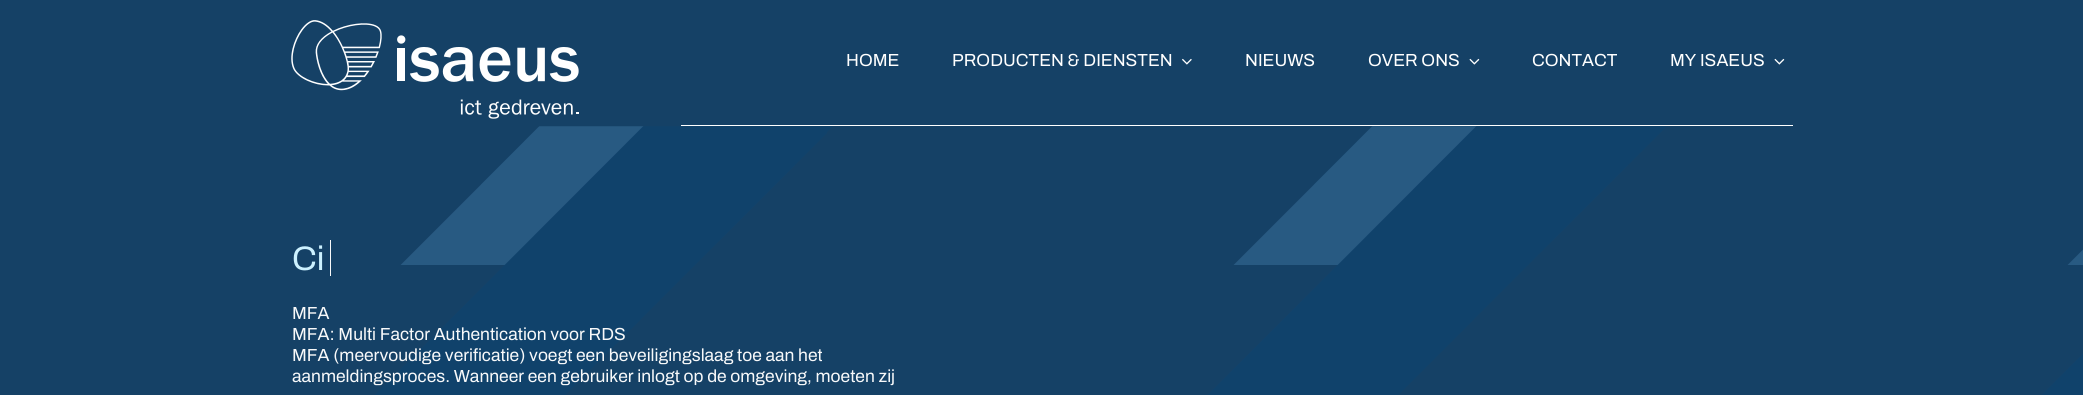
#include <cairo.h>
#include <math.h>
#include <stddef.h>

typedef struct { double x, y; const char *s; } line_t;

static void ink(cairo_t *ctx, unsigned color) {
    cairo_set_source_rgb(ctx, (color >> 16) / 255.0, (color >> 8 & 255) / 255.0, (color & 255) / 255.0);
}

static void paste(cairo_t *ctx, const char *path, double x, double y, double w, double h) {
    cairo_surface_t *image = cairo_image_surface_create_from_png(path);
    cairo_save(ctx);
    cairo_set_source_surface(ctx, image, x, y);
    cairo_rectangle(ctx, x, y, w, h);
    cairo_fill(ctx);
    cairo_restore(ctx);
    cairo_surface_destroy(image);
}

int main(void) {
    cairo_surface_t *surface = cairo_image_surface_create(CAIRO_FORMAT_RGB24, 2083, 395);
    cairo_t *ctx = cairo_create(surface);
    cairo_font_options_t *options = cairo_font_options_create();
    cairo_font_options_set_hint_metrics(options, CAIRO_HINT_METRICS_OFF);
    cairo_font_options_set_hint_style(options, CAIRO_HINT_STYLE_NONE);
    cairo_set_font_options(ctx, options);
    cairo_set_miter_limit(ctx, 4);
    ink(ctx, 0x154166);
    cairo_paint(ctx);
    paste(ctx, "media/1.png", 291, 20, 288, 99);
    cairo_select_font_face(ctx, "Archivo SemiBold", CAIRO_FONT_SLANT_NORMAL, CAIRO_FONT_WEIGHT_NORMAL);
    cairo_set_font_size(ctx, 17.5);
    ink(ctx, 0xFFFFFF);
    cairo_move_to(ctx, 846, 66);
    cairo_show_text(ctx, "HOME");
    cairo_move_to(ctx, 952, 66);
    cairo_show_text(ctx, "PRODUCTEN & DIENSTEN");
    paste(ctx, "media/2.png", 1182, 58, 10, 7);
    cairo_move_to(ctx, 1245, 66);
    cairo_show_text(ctx, "NIEUWS");
    cairo_move_to(ctx, 1368, 66);
    cairo_show_text(ctx, "OVER ONS");
    paste(ctx, "media/3.png", 1469, 58, 11, 7);
    cairo_move_to(ctx, 1532, 66);
    cairo_show_text(ctx, "CONTACT");
    cairo_move_to(ctx, 1670, 66);
    cairo_show_text(ctx, "MY ISAEUS");
    paste(ctx, "media/3.png", 1774, 58, 11, 7);
    cairo_rectangle(ctx, 681, 125, 1112, 1);
    cairo_fill(ctx);
    paste(ctx, "media/4.png", 375, 126, 1708, 269);
    cairo_set_font_size(ctx, 34);
    ink(ctx, 0xCCF1FF);
    cairo_move_to(ctx, 292, 270);
    cairo_show_text(ctx, "Ci");
    ink(ctx, 0xF8F9FA);
    cairo_rectangle(ctx, 330, 240, 1, 36);
    cairo_fill(ctx);
    cairo_set_font_size(ctx, 17.5);
    {
        static const line_t items[] = {
            {292, 319, "MFA"},
            {292, 340, "MFA: Multi Factor Authentication voor RDS"},
            {292, 361, "MFA (meervoudige verificatie) voegt een beveiligingslaag toe aan het"},
            {292, 382, "aanmeldingsproces. Wanneer een gebruiker inlogt op de omgeving, moeten zij"},
        };
        for (size_t i = 0; i < sizeof items / sizeof *items; i++) {
            cairo_move_to(ctx, items[i].x, items[i].y);
            cairo_show_text(ctx, items[i].s);
        }
    }
    cairo_surface_write_to_png(surface, "image.png");
    cairo_font_options_destroy(options);
    cairo_destroy(ctx);
    cairo_surface_destroy(surface);
    return 0;
}
